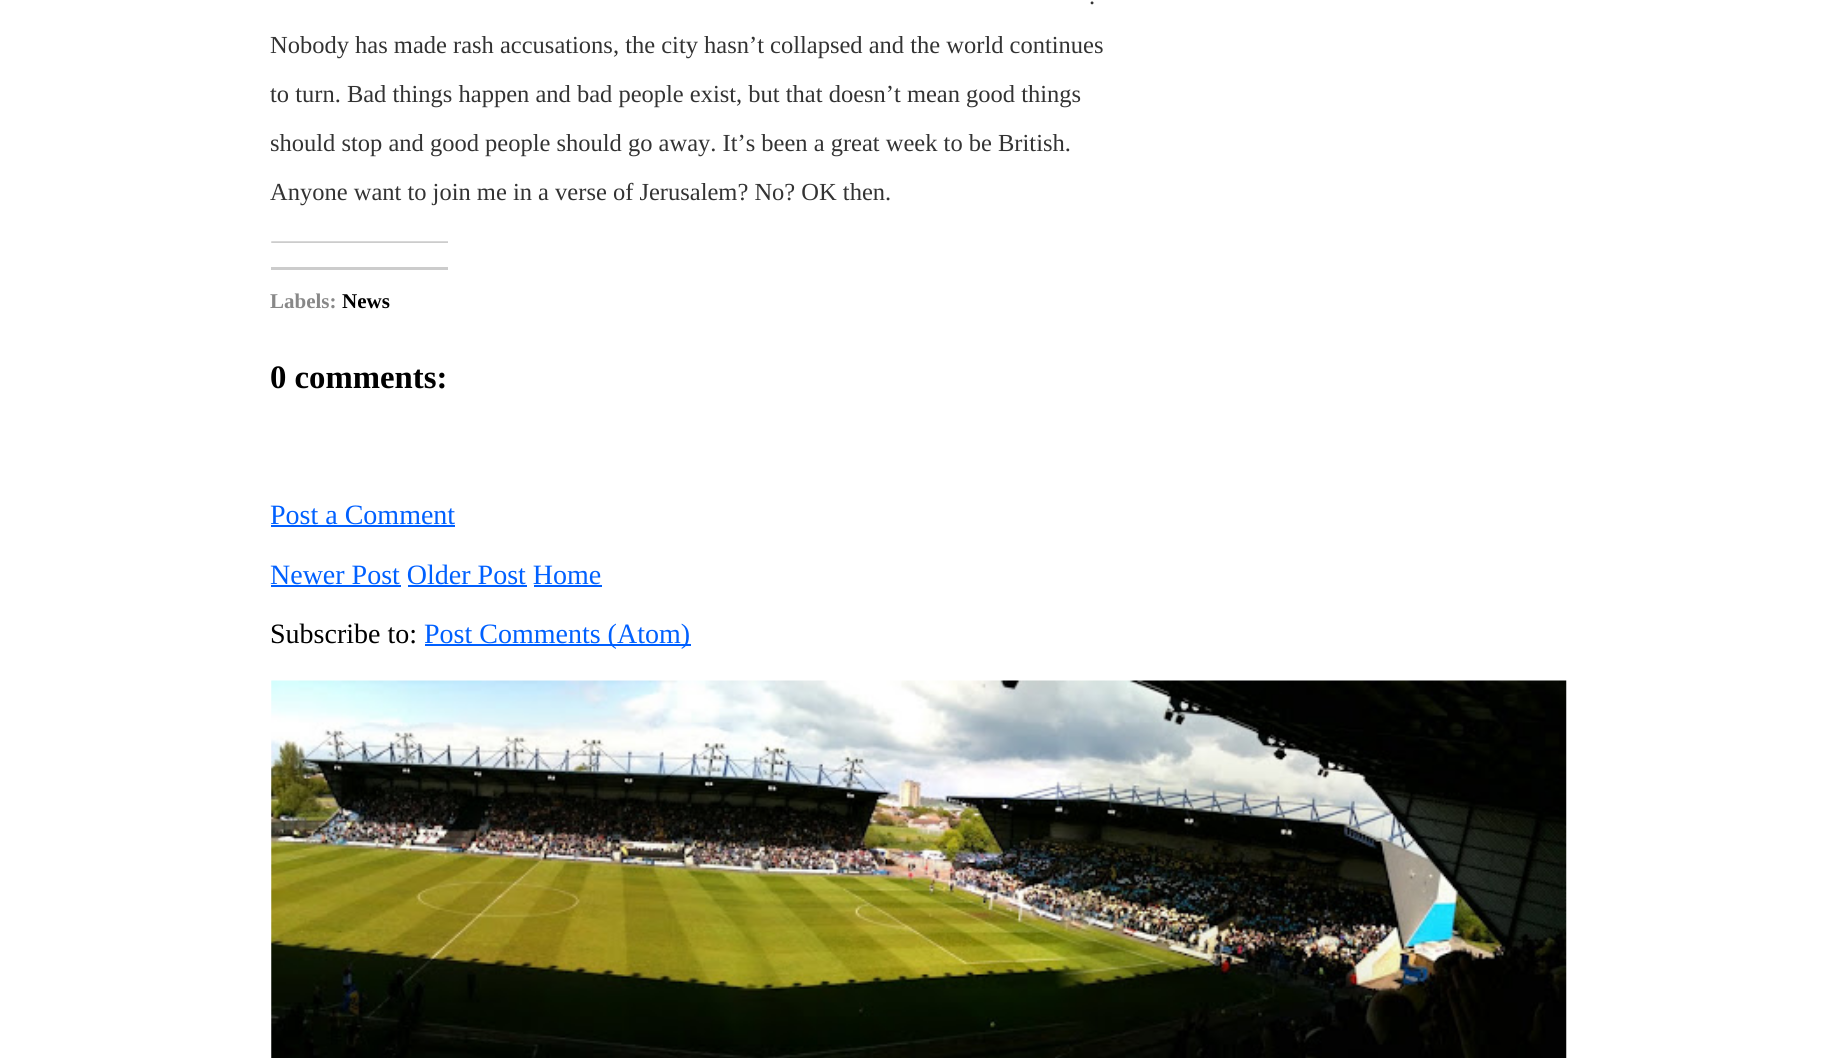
#include <cairo.h>
#include <math.h>
#include <stddef.h>

typedef struct { double x, y; const char *s; } line_t;
typedef struct { double x, y, w, h; unsigned color; } box_t;

static void ink(cairo_t *ctx, unsigned color) {
    cairo_set_source_rgb(ctx, (color >> 16) / 255.0, (color >> 8 & 255) / 255.0, (color & 255) / 255.0);
}

static void paste(cairo_t *ctx, const char *path, double x, double y, double w, double h) {
    cairo_surface_t *image = cairo_image_surface_create_from_png(path);
    cairo_save(ctx);
    cairo_set_source_surface(ctx, image, x, y);
    cairo_rectangle(ctx, x, y, w, h);
    cairo_fill(ctx);
    cairo_restore(ctx);
    cairo_surface_destroy(image);
}

int main(void) {
    cairo_surface_t *surface = cairo_image_surface_create(CAIRO_FORMAT_RGB24, 1835, 1058);
    cairo_t *ctx = cairo_create(surface);
    cairo_font_options_t *options = cairo_font_options_create();
    cairo_font_options_set_hint_metrics(options, CAIRO_HINT_METRICS_OFF);
    cairo_font_options_set_hint_style(options, CAIRO_HINT_STYLE_NONE);
    cairo_set_font_options(ctx, options);
    cairo_set_miter_limit(ctx, 4);
    ink(ctx, 0xFFFFFF);
    cairo_paint(ctx);
    cairo_select_font_face(ctx, "Liberation Serif", CAIRO_FONT_SLANT_NORMAL, CAIRO_FONT_WEIGHT_NORMAL);
    cairo_set_font_size(ctx, 24.5);
    ink(ctx, 0x333333);
    {
        static const line_t items[] = {
            {1089, 4, "."},
            {270, 53, "Nobody has made rash accusations, the city hasn’t collapsed and the world continues"},
            {270, 102, "to turn. Bad things happen and bad people exist, but that doesn’t mean good things"},
            {270, 151, "should stop and good people should go away. It’s been a great week to be British."},
            {270, 200, "Anyone want to join me in a verse of Jerusalem? No? OK then."},
        };
        for (size_t i = 0; i < sizeof items / sizeof *items; i++) {
            cairo_move_to(ctx, items[i].x, items[i].y);
            cairo_show_text(ctx, items[i].s);
        }
    }
    paste(ctx, "media/1.png", 271, 241, 177, 2);
    ink(ctx, 0xCCCCCC);
    cairo_rectangle(ctx, 271, 267, 177, 3);
    cairo_fill(ctx);
    cairo_select_font_face(ctx, "Liberation Serif", CAIRO_FONT_SLANT_NORMAL, CAIRO_FONT_WEIGHT_BOLD);
    cairo_set_font_size(ctx, 21);
    ink(ctx, 0x888888);
    cairo_move_to(ctx, 270, 308);
    cairo_show_text(ctx, "Labels:");
    ink(ctx, 0x000000);
    cairo_move_to(ctx, 342, 308);
    cairo_show_text(ctx, "News");
    cairo_set_font_size(ctx, 32.75);
    cairo_move_to(ctx, 270, 388);
    cairo_show_text(ctx, "0 comments:");
    cairo_select_font_face(ctx, "Liberation Serif", CAIRO_FONT_SLANT_NORMAL, CAIRO_FONT_WEIGHT_NORMAL);
    cairo_set_font_size(ctx, 28);
    ink(ctx, 0x0060FF);
    cairo_move_to(ctx, 270, 524);
    cairo_show_text(ctx, "Post a Comment");
    cairo_rectangle(ctx, 271, 525, 184, 2);
    cairo_fill(ctx);
    cairo_move_to(ctx, 270, 584);
    cairo_show_text(ctx, "Newer Post Older Post Home");
    {
        static const box_t items[] = {
            {271, 585, 130, 2, 0x0060FF},
            {408, 585, 119, 2, 0x0060FF},
            {534, 585, 68, 2, 0x0060FF},
        };
        for (size_t i = 0; i < sizeof items / sizeof *items; i++) {
            ink(ctx, items[i].color);
            cairo_rectangle(ctx, items[i].x, items[i].y, items[i].w, items[i].h);
            cairo_fill(ctx);
        }
    }
    ink(ctx, 0x000000);
    cairo_move_to(ctx, 270, 643);
    cairo_show_text(ctx, "Subscribe to:");
    ink(ctx, 0x0060FF);
    cairo_rectangle(ctx, 425, 644, 266, 2);
    cairo_fill(ctx);
    cairo_move_to(ctx, 424, 643);
    cairo_show_text(ctx, "Post Comments (Atom)");
    paste(ctx, "media/2.png", 271, 680, 1296, 378);
    cairo_surface_write_to_png(surface, "image.png");
    cairo_font_options_destroy(options);
    cairo_destroy(ctx);
    cairo_surface_destroy(surface);
    return 0;
}
